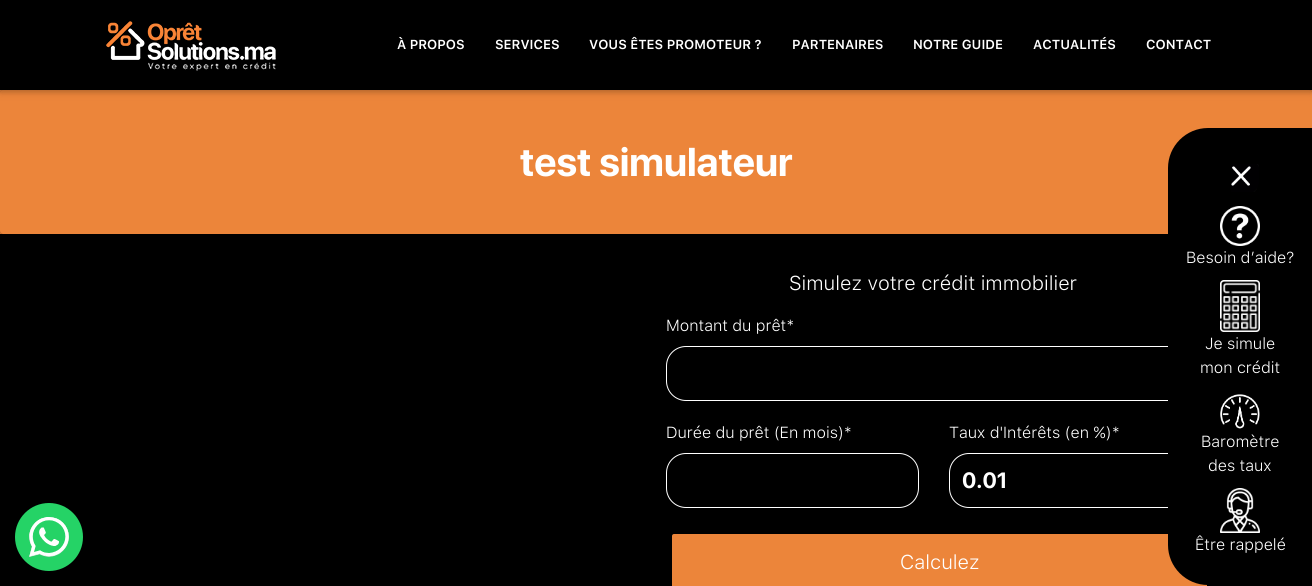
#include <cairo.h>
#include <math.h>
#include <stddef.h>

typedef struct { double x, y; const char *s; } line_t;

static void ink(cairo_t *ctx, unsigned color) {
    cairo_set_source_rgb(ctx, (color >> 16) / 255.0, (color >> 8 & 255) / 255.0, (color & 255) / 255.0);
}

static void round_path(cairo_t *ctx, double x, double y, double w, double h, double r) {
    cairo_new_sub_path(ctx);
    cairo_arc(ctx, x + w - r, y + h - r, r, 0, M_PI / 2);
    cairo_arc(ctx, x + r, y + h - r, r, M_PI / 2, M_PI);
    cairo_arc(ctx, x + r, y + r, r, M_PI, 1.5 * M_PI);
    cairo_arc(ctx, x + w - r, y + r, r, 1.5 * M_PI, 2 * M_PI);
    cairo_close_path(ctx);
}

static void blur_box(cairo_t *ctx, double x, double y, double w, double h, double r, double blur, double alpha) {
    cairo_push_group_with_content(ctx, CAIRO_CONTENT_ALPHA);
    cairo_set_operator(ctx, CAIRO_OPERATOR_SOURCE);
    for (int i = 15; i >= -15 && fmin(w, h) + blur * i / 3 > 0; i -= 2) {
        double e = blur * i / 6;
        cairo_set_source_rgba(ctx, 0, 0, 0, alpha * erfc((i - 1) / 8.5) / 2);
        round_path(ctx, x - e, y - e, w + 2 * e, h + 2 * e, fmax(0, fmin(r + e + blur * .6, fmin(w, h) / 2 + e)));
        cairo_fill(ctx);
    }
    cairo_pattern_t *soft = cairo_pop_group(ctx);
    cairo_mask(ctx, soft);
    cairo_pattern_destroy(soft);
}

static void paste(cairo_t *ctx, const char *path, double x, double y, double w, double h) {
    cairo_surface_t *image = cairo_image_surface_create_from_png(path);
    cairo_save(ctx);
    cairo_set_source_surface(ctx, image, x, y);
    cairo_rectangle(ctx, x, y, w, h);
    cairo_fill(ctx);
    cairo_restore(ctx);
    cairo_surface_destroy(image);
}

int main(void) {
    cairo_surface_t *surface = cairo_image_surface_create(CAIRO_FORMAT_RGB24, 1312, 586);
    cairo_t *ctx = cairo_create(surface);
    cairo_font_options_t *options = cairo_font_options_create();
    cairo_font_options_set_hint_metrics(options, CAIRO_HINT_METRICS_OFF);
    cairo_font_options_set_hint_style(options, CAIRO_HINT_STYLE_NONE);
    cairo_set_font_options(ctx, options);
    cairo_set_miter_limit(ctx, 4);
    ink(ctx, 0xEC853A);
    cairo_paint(ctx);
    ink(ctx, 0x000000);
    blur_box(ctx, 0, 2, 1312, 90, 0, 5, 0.12);
    blur_box(ctx, 0, 2, 1312, 90, 0, 2.5, 0.16);
    ink(ctx, 0x000000);
    cairo_rectangle(ctx, 0, 0, 1312, 90);
    cairo_fill(ctx);
    paste(ctx, "media/1.png", 106, 21, 170, 50);
    cairo_select_font_face(ctx, "SF Pro Text SemiBold", CAIRO_FONT_SLANT_NORMAL, CAIRO_FONT_WEIGHT_NORMAL);
    cairo_set_font_size(ctx, 13);
    ink(ctx, 0xFFFFFF);
    {
        static const line_t items[] = {
            {397, 49, "À PROPOS"},
            {495, 49, "SERVICES"},
            {589, 49, "VOUS ÊTES PROMOTEUR ?"},
            {792, 49, "PARTENAIRES"},
            {913, 49, "NOTRE GUIDE"},
            {1033, 49, "ACTUALITÉS"},
            {1146, 49, "CONTACT"},
        };
        for (size_t i = 0; i < sizeof items / sizeof *items; i++) {
            cairo_move_to(ctx, items[i].x, items[i].y);
            cairo_show_text(ctx, items[i].s);
        }
    }
    ink(ctx, 0x000000);
    cairo_rectangle(ctx, 0, 234, 1312, 352);
    cairo_fill(ctx);
    cairo_save(ctx);
    cairo_set_fill_rule(ctx, CAIRO_FILL_RULE_EVEN_ODD);
    cairo_new_path(ctx);
    cairo_move_to(ctx, 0, 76);
    cairo_line_to(ctx, 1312, 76);
    cairo_line_to(ctx, 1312, 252);
    cairo_line_to(ctx, 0, 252);
    cairo_close_path(ctx);
    cairo_move_to(ctx, 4, 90);
    cairo_line_to(ctx, 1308, 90);
    cairo_curve_to(ctx, 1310, 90, 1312, 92, 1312, 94);
    cairo_line_to(ctx, 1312, 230);
    cairo_curve_to(ctx, 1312, 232, 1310, 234, 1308, 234);
    cairo_line_to(ctx, 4, 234);
    cairo_curve_to(ctx, 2, 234, 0, 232, 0, 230);
    cairo_line_to(ctx, 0, 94);
    cairo_curve_to(ctx, 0, 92, 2, 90, 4, 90);
    cairo_close_path(ctx);
    cairo_clip(ctx);
    ink(ctx, 0x000000);
    blur_box(ctx, 0, 92, 1312, 144, 4, 5, 0.12);
    cairo_restore(ctx);
    cairo_save(ctx);
    cairo_set_fill_rule(ctx, CAIRO_FILL_RULE_EVEN_ODD);
    cairo_new_path(ctx);
    cairo_move_to(ctx, 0, 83);
    cairo_line_to(ctx, 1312, 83);
    cairo_line_to(ctx, 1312, 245);
    cairo_line_to(ctx, 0, 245);
    cairo_close_path(ctx);
    cairo_move_to(ctx, 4, 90);
    cairo_line_to(ctx, 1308, 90);
    cairo_curve_to(ctx, 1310, 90, 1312, 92, 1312, 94);
    cairo_line_to(ctx, 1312, 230);
    cairo_curve_to(ctx, 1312, 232, 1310, 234, 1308, 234);
    cairo_line_to(ctx, 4, 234);
    cairo_curve_to(ctx, 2, 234, 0, 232, 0, 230);
    cairo_line_to(ctx, 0, 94);
    cairo_curve_to(ctx, 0, 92, 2, 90, 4, 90);
    cairo_close_path(ctx);
    cairo_clip(ctx);
    ink(ctx, 0x000000);
    blur_box(ctx, 0, 92, 1312, 144, 4, 2.5, 0.16);
    cairo_restore(ctx);
    cairo_select_font_face(ctx, "SF Pro Display", CAIRO_FONT_SLANT_NORMAL, CAIRO_FONT_WEIGHT_BOLD);
    cairo_set_font_size(ctx, 40);
    ink(ctx, 0xFFFFFF);
    cairo_move_to(ctx, 520, 176);
    cairo_show_text(ctx, "test simulateur");
    ink(ctx, 0x25D366);
    cairo_new_path(ctx);
    cairo_arc(ctx, 49, 537, 34, 0, 2 * M_PI);
    cairo_fill(ctx);
    paste(ctx, "media/2.png", 29, 517, 40, 40);
    cairo_select_font_face(ctx, "SF Pro Text Light", CAIRO_FONT_SLANT_NORMAL, CAIRO_FONT_WEIGHT_NORMAL);
    cairo_set_font_size(ctx, 20);
    ink(ctx, 0xFFFFFF);
    cairo_move_to(ctx, 789, 290);
    cairo_show_text(ctx, "Simulez votre crédit immobilier");
    cairo_set_font_size(ctx, 16);
    cairo_move_to(ctx, 666, 331);
    cairo_show_text(ctx, "Montant du prêt*");
    round_path(ctx, 666.5, 346.5, 534, 54, 19.5);
    cairo_set_line_width(ctx, 1);
    cairo_stroke(ctx);
    cairo_move_to(ctx, 666, 438);
    cairo_show_text(ctx, "Durée du prêt (En mois)*");
    round_path(ctx, 666.5, 453.5, 252, 54, 19.5);
    cairo_stroke(ctx);
    cairo_move_to(ctx, 949, 438);
    cairo_show_text(ctx, "Taux d'Intérêts (en %)*");
    round_path(ctx, 949.5, 453.5, 251, 54, 19.5);
    cairo_stroke(ctx);
    cairo_select_font_face(ctx, "SF Pro Display", CAIRO_FONT_SLANT_NORMAL, CAIRO_FONT_WEIGHT_BOLD);
    cairo_set_font_size(ctx, 22);
    cairo_move_to(ctx, 962, 488);
    cairo_show_text(ctx, "0.01");
    ink(ctx, 0xEC853A);
    round_path(ctx, 672, 534, 535, 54, 2);
    cairo_fill(ctx);
    cairo_select_font_face(ctx, "SF Pro Text Light", CAIRO_FONT_SLANT_NORMAL, CAIRO_FONT_WEIGHT_NORMAL);
    cairo_set_font_size(ctx, 20);
    ink(ctx, 0xFFFFFF);
    cairo_move_to(ctx, 900, 569);
    cairo_show_text(ctx, "Calculez");
    ink(ctx, 0x000000);
    cairo_new_path(ctx);
    cairo_move_to(ctx, 1208, 128);
    cairo_line_to(ctx, 1312, 128);
    cairo_line_to(ctx, 1312, 585);
    cairo_line_to(ctx, 1208, 585);
    cairo_curve_to(ctx, 1186, 585, 1168, 567, 1168, 545);
    cairo_line_to(ctx, 1168, 168);
    cairo_curve_to(ctx, 1168, 146, 1186, 128, 1208, 128);
    cairo_close_path(ctx);
    cairo_fill(ctx);
    paste(ctx, "media/3.png", 1231, 164, 28, 28);
    paste(ctx, "media/4.png", 1220, 206, 40, 40);
    cairo_set_font_size(ctx, 16);
    ink(ctx, 0xFFFFFF);
    cairo_move_to(ctx, 1186, 263);
    cairo_show_text(ctx, "Besoin d’aide?");
    paste(ctx, "media/5.png", 1220, 280, 40, 52);
    cairo_move_to(ctx, 1205, 349);
    cairo_show_text(ctx, "Je simule");
    cairo_move_to(ctx, 1200, 373);
    cairo_show_text(ctx, "mon crédit");
    paste(ctx, "media/6.png", 1220, 394, 40, 35);
    cairo_move_to(ctx, 1201, 447);
    cairo_show_text(ctx, "Baromètre");
    cairo_move_to(ctx, 1208, 471);
    cairo_show_text(ctx, "des taux");
    paste(ctx, "media/7.png", 1220, 488, 40, 45);
    cairo_move_to(ctx, 1195, 550);
    cairo_show_text(ctx, "Être rappelé");
    cairo_surface_write_to_png(surface, "image.png");
    cairo_font_options_destroy(options);
    cairo_destroy(ctx);
    cairo_surface_destroy(surface);
    return 0;
}
